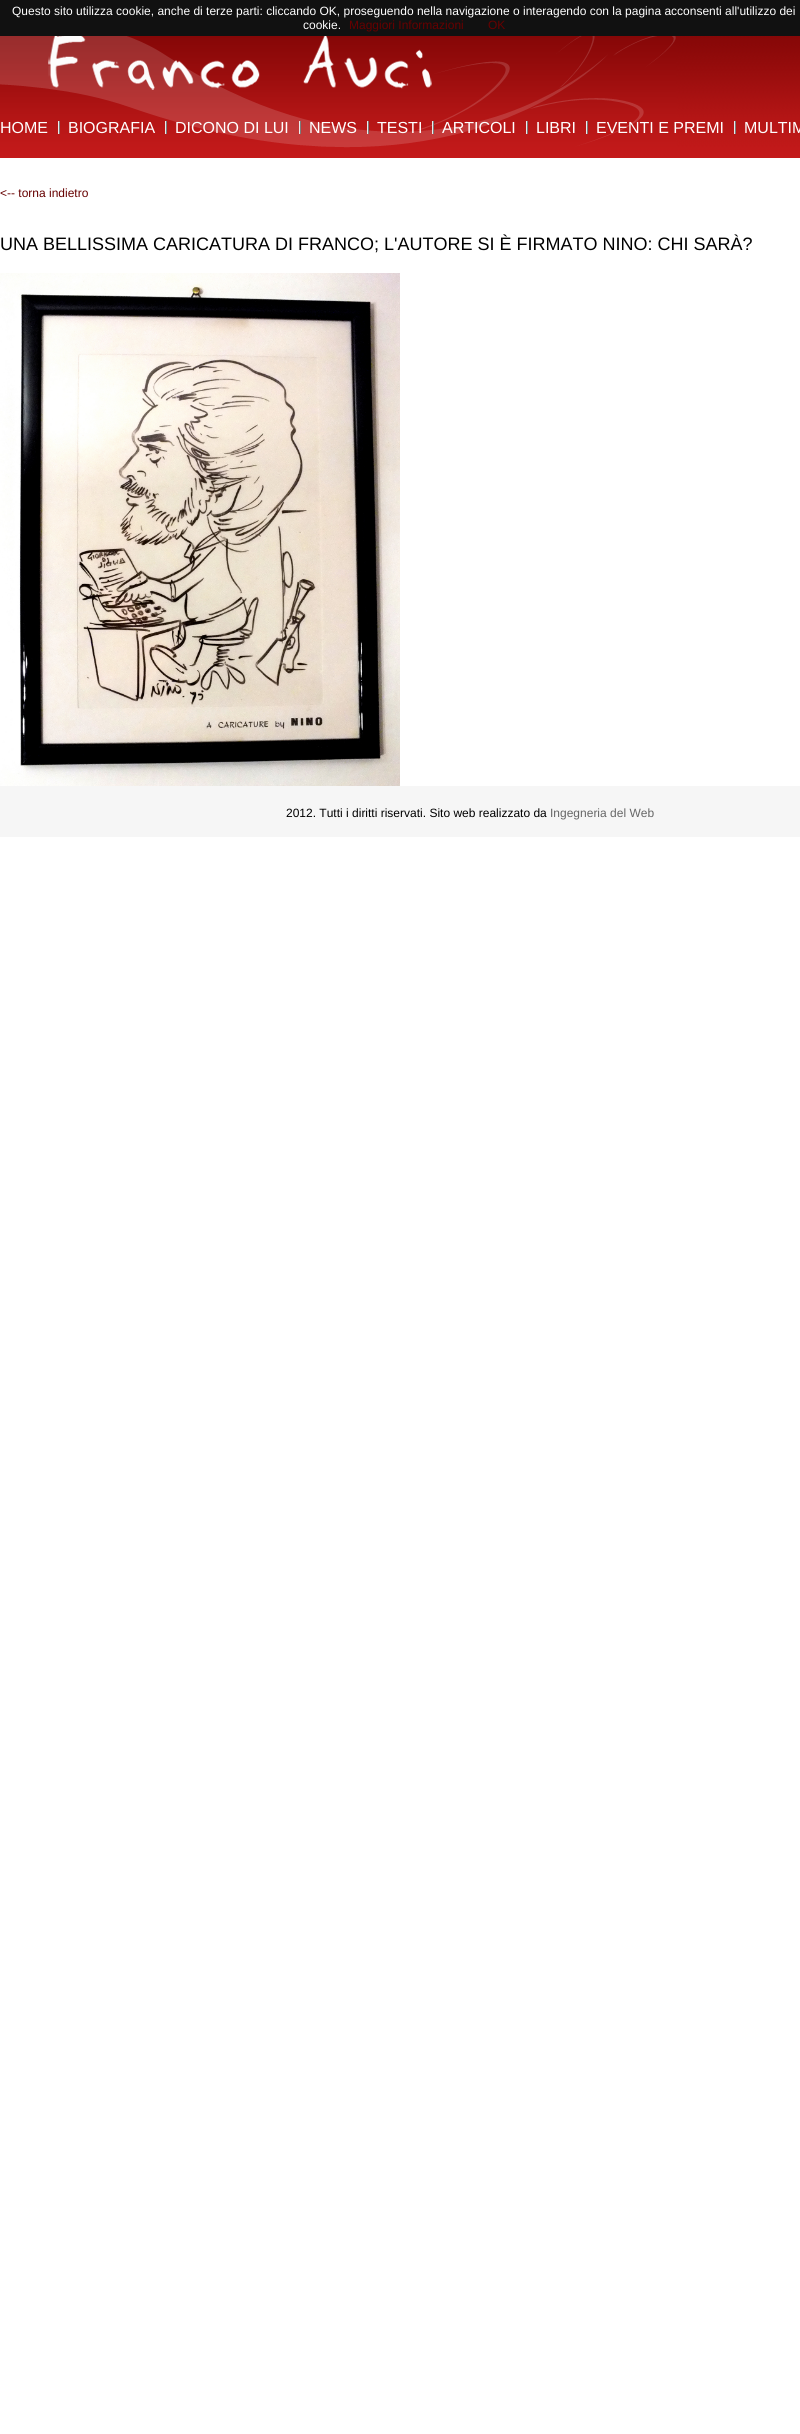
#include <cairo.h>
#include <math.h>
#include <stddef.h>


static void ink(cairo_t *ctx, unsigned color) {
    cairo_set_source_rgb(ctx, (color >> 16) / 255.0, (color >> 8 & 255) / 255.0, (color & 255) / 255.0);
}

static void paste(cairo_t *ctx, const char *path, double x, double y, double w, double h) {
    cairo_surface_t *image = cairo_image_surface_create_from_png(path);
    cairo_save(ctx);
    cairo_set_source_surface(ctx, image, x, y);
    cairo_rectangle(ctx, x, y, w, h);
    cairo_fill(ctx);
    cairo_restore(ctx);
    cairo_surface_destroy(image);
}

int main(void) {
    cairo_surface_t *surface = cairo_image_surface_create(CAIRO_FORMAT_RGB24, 800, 2434);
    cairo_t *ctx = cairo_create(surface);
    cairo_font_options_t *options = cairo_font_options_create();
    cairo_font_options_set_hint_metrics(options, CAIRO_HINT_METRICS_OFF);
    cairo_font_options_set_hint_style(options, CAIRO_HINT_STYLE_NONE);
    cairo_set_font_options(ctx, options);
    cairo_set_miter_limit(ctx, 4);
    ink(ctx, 0xFFFFFF);
    cairo_paint(ctx);
    ink(ctx, 0x111111);
    cairo_rectangle(ctx, 0, 0, 800, 36);
    cairo_fill(ctx);
    cairo_select_font_face(ctx, "Liberation Sans", CAIRO_FONT_SLANT_NORMAL, CAIRO_FONT_WEIGHT_NORMAL);
    cairo_set_font_size(ctx, 12);
    ink(ctx, 0xFFFFFF);
    cairo_move_to(ctx, 12, 15);
    cairo_show_text(ctx, "Questo sito utilizza cookie, anche di terze parti: cliccando OK, proseguendo nella navigazione o interagendo con la pagina acconsenti all'utilizzo dei");
    cairo_move_to(ctx, 303, 29);
    cairo_show_text(ctx, "cookie.");
    ink(ctx, 0x660000);
    cairo_move_to(ctx, 349, 29);
    cairo_show_text(ctx, "Maggiori Informazioni");
    cairo_move_to(ctx, 488, 29);
    cairo_show_text(ctx, "OK");
    paste(ctx, "media/1.png", 0, 36, 800, 122);
    paste(ctx, "media/2.png", 0, 36, 676, 112);
    cairo_set_font_size(ctx, 16);
    ink(ctx, 0xFFFFFF);
    cairo_move_to(ctx, 0, 133);
    cairo_show_text(ctx, "HOME");
    paste(ctx, "media/3.png", 58, 121, 2, 13);
    cairo_move_to(ctx, 68, 133);
    cairo_show_text(ctx, "BIOGRAFIA");
    paste(ctx, "media/3.png", 165, 121, 2, 13);
    cairo_move_to(ctx, 175, 133);
    cairo_show_text(ctx, "DICONO DI LUI");
    paste(ctx, "media/3.png", 299, 121, 2, 13);
    cairo_move_to(ctx, 309, 133);
    cairo_show_text(ctx, "NEWS");
    paste(ctx, "media/3.png", 367, 121, 2, 13);
    cairo_move_to(ctx, 377, 133);
    cairo_show_text(ctx, "TESTI");
    paste(ctx, "media/3.png", 432, 121, 2, 13);
    cairo_move_to(ctx, 442, 133);
    cairo_show_text(ctx, "ARTICOLI");
    paste(ctx, "media/3.png", 526, 121, 2, 13);
    cairo_move_to(ctx, 536, 133);
    cairo_show_text(ctx, "LIBRI");
    paste(ctx, "media/3.png", 586, 121, 2, 13);
    cairo_move_to(ctx, 596, 133);
    cairo_show_text(ctx, "EVENTI E PREMI");
    paste(ctx, "media/3.png", 734, 121, 2, 13);
    cairo_move_to(ctx, 744, 133);
    cairo_show_text(ctx, "MULTIM");
    cairo_set_font_size(ctx, 12);
    ink(ctx, 0x660000);
    cairo_move_to(ctx, 0, 197);
    cairo_show_text(ctx, "<-- torna indietro");
    cairo_set_font_size(ctx, 18);
    ink(ctx, 0x000000);
    cairo_move_to(ctx, 0, 250);
    cairo_show_text(ctx, "UNA BELLISSIMA CARICATURA DI FRANCO; L'AUTORE SI È FIRMATO NINO: CHI SARÀ?");
    paste(ctx, "media/4.png", 0, 273, 400, 513);
    ink(ctx, 0xF6F6F6);
    cairo_rectangle(ctx, 0, 786, 800, 51);
    cairo_fill(ctx);
    cairo_set_font_size(ctx, 12);
    ink(ctx, 0x000000);
    cairo_move_to(ctx, 286, 817);
    cairo_show_text(ctx, "2012. Tutti i diritti riservati. Sito web realizzato da");
    ink(ctx, 0x666666);
    cairo_move_to(ctx, 550, 817);
    cairo_show_text(ctx, "Ingegneria del Web");
    cairo_surface_write_to_png(surface, "image.png");
    cairo_font_options_destroy(options);
    cairo_destroy(ctx);
    cairo_surface_destroy(surface);
    return 0;
}
